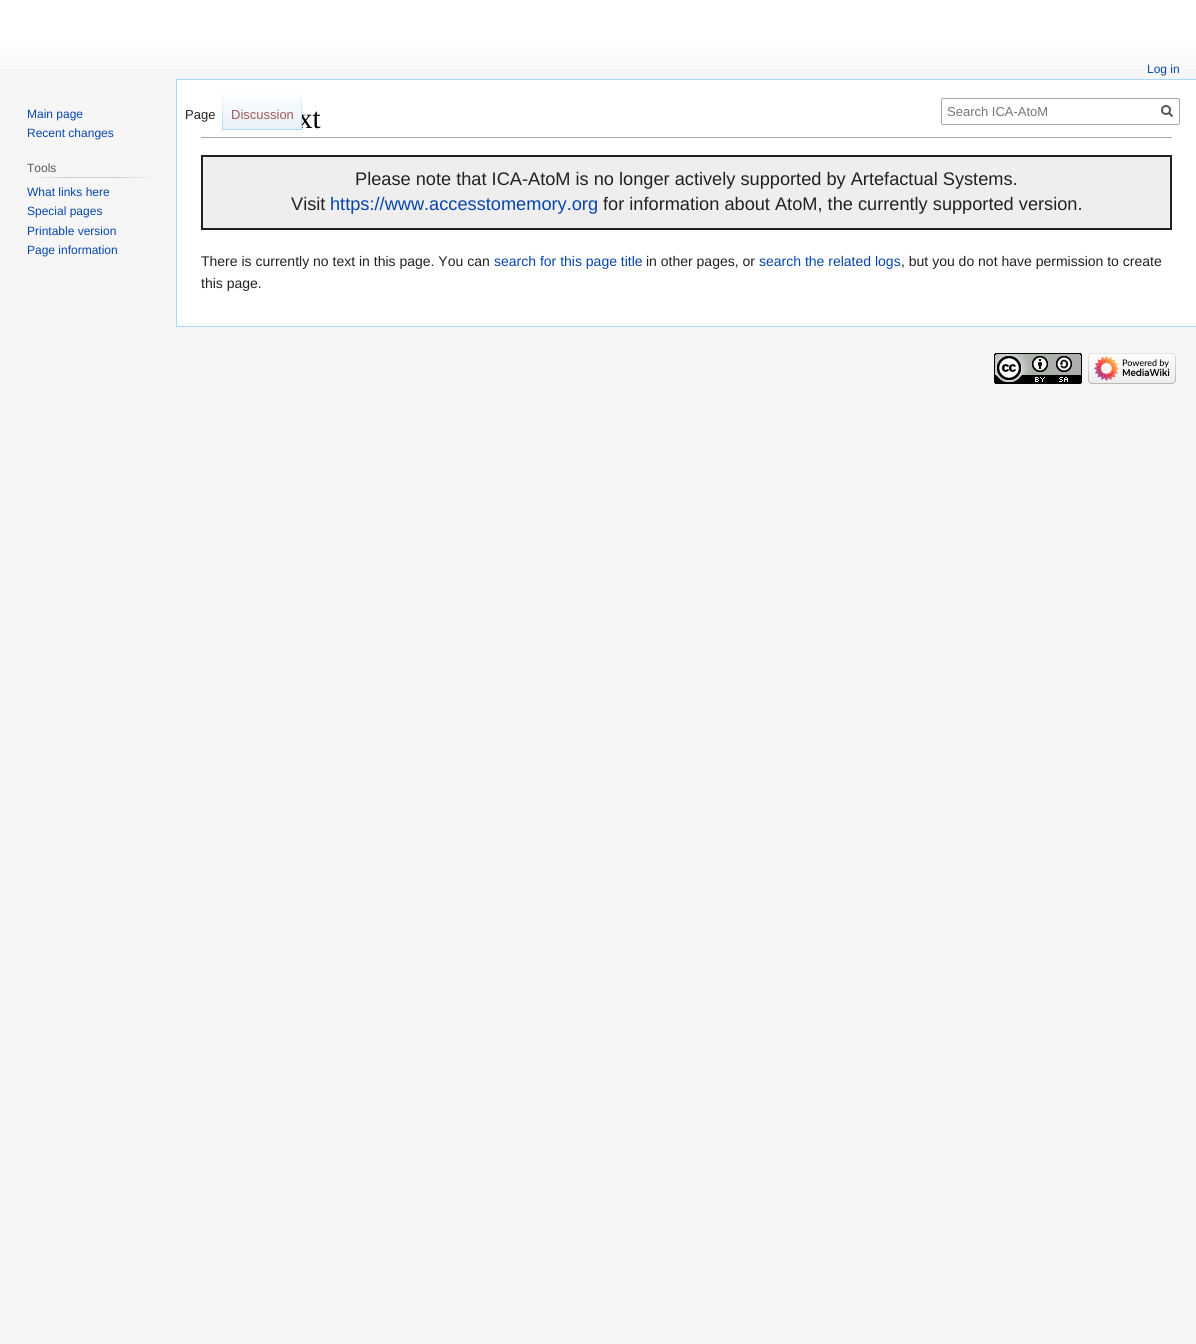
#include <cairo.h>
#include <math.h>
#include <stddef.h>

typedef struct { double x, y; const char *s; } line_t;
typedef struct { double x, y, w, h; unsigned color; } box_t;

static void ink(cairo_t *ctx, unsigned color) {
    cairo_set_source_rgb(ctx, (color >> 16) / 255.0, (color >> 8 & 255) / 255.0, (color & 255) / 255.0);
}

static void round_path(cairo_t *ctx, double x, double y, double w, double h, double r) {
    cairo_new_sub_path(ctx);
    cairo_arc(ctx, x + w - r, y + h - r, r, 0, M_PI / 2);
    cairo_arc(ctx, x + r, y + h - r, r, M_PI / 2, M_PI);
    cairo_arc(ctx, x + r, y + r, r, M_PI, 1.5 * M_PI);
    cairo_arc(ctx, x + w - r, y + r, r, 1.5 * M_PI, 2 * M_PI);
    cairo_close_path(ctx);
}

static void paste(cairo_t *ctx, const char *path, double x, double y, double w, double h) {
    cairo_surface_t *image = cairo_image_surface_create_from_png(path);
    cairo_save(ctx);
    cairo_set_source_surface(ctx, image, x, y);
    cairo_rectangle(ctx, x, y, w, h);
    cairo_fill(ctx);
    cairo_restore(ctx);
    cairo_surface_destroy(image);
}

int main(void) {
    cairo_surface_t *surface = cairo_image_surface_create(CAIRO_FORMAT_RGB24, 1196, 1344);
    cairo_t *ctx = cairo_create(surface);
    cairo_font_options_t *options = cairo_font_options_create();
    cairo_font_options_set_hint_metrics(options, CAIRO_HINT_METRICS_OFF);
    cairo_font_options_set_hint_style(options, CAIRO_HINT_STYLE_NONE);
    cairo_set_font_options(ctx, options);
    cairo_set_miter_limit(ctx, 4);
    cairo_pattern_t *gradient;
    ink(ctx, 0xF6F6F6);
    cairo_paint(ctx);
    gradient = cairo_pattern_create_linear(598, 0, 598, 80);
    cairo_pattern_add_color_stop_rgba(gradient, 0.5, 1, 1, 1, 1);
    cairo_pattern_add_color_stop_rgba(gradient, 1, 0.965, 0.965, 0.965, 1);
    cairo_set_source(ctx, gradient);
    cairo_pattern_destroy(gradient);
    cairo_rectangle(ctx, 0, 0, 1196, 69);
    cairo_fill(ctx);
    cairo_select_font_face(ctx, "Liberation Sans", CAIRO_FONT_SLANT_NORMAL, CAIRO_FONT_WEIGHT_NORMAL);
    cairo_set_font_size(ctx, 12);
    ink(ctx, 0x0645AD);
    cairo_move_to(ctx, 1147, 73);
    cairo_show_text(ctx, "Log in");
    ink(ctx, 0xFFFFFF);
    cairo_rectangle(ctx, 177, 80, 1019, 246);
    cairo_fill(ctx);
    gradient = cairo_pattern_create_linear(223, 90, 223, 130);
    cairo_pattern_add_color_stop_rgba(gradient, 0, 1, 1, 1, 1);
    cairo_pattern_add_color_stop_rgba(gradient, 1, 0.655, 0.843, 0.976, 1);
    cairo_set_source(ctx, gradient);
    cairo_pattern_destroy(gradient);
    cairo_rectangle(ctx, 222, 90, 1, 40);
    cairo_fill(ctx);
    cairo_set_font_size(ctx, 13);
    ink(ctx, 0x202122);
    cairo_move_to(ctx, 185, 119);
    cairo_show_text(ctx, "Page");
    cairo_select_font_face(ctx, "Liberation Serif", CAIRO_FONT_SLANT_NORMAL, CAIRO_FONT_WEIGHT_NORMAL);
    cairo_set_font_size(ctx, 29);
    ink(ctx, 0x000000);
    cairo_move_to(ctx, 298, 128);
    cairo_show_text(ctx, "xt");
    gradient = cairo_pattern_create_linear(263, 130, 263, 90);
    cairo_pattern_add_color_stop_rgba(gradient, 0, 0.467, 0.757, 0.965, 1);
    cairo_pattern_add_color_stop_rgba(gradient, 0.03, 0.91, 0.949, 0.973, 1);
    cairo_pattern_add_color_stop_rgba(gradient, 1, 1, 1, 1, 1);
    cairo_set_source(ctx, gradient);
    cairo_pattern_destroy(gradient);
    cairo_rectangle(ctx, 223, 94, 79, 36);
    cairo_fill(ctx);
    gradient = cairo_pattern_create_linear(302, 90, 302, 130);
    cairo_pattern_add_color_stop_rgba(gradient, 0, 0.655, 0.843, 0.976, 0);
    cairo_pattern_add_color_stop_rgba(gradient, 1, 0.655, 0.843, 0.976, 1);
    cairo_set_source(ctx, gradient);
    cairo_pattern_destroy(gradient);
    cairo_rectangle(ctx, 301, 90, 1, 40);
    cairo_fill(ctx);
    cairo_select_font_face(ctx, "Liberation Sans", CAIRO_FONT_SLANT_NORMAL, CAIRO_FONT_WEIGHT_NORMAL);
    cairo_set_font_size(ctx, 13);
    ink(ctx, 0xA55858);
    cairo_move_to(ctx, 231, 119);
    cairo_show_text(ctx, "Discussion");
    round_path(ctx, 941.5, 98.5, 238, 26, 1.5);
    ink(ctx, 0xA2A9B1);
    cairo_set_line_width(ctx, 1);
    cairo_stroke(ctx);
    ink(ctx, 0x72777D);
    cairo_move_to(ctx, 947, 116);
    cairo_show_text(ctx, "Search ICA-AtoM");
    cairo_new_path(ctx);
    cairo_move_to(ctx, 1172.5, 116.5);
    cairo_line_to(ctx, 1168.5, 112.5);
    ink(ctx, 0x54595D);
    cairo_set_line_width(ctx, 2);
    cairo_stroke(ctx);
    cairo_arc(ctx, 1166, 110, 4, 0, 2 * M_PI);
    cairo_stroke(ctx);
    cairo_set_font_size(ctx, 12);
    ink(ctx, 0x0645AD);
    cairo_move_to(ctx, 27, 118);
    cairo_show_text(ctx, "Main page");
    cairo_move_to(ctx, 27, 137);
    cairo_show_text(ctx, "Recent changes");
    gradient = cairo_pattern_create_linear(27, 178, 158, 178);
    cairo_pattern_add_color_stop_rgba(gradient, 0, 0.965, 0.965, 0.965, 1);
    cairo_pattern_add_color_stop_rgba(gradient, 0.33, 0.784, 0.8, 0.82, 1);
    cairo_pattern_add_color_stop_rgba(gradient, 0.66, 0.784, 0.8, 0.82, 1);
    cairo_pattern_add_color_stop_rgba(gradient, 1, 0.965, 0.965, 0.965, 1);
    cairo_set_source(ctx, gradient);
    cairo_pattern_destroy(gradient);
    cairo_rectangle(ctx, 27, 177, 131, 1);
    cairo_fill(ctx);
    ink(ctx, 0x54595D);
    cairo_move_to(ctx, 27, 172);
    cairo_show_text(ctx, "Tools");
    ink(ctx, 0x0645AD);
    {
        static const line_t items[] = {
            {27, 196, "What links here"},
            {27, 215, "Special pages"},
            {27, 235, "Printable version"},
            {27, 254, "Page information"},
        };
        for (size_t i = 0; i < sizeof items / sizeof *items; i++) {
            cairo_move_to(ctx, items[i].x, items[i].y);
            cairo_show_text(ctx, items[i].s);
        }
    }
    {
        static const box_t items[] = {
            {176, 79, 1020, 1, 0xA7D7F9},
            {176, 326, 1020, 1, 0xA7D7F9},
            {176, 79, 1, 248, 0xA7D7F9},
            {201, 137, 971, 1, 0xA2A9B1},
        };
        for (size_t i = 0; i < sizeof items / sizeof *items; i++) {
            ink(ctx, items[i].color);
            cairo_rectangle(ctx, items[i].x, items[i].y, items[i].w, items[i].h);
            cairo_fill(ctx);
        }
    }
    ink(ctx, 0xEEEEEE);
    cairo_rectangle(ctx, 202, 156, 969, 73);
    cairo_fill_preserve(ctx);
    ink(ctx, 0x202122);
    cairo_stroke(ctx);
    cairo_set_font_size(ctx, 18.2);
    cairo_move_to(ctx, 355, 185);
    cairo_show_text(ctx, "Please note that ICA-AtoM is no longer actively supported by Artefactual Systems.");
    cairo_move_to(ctx, 291, 210);
    cairo_show_text(ctx, "Visit");
    ink(ctx, 0x0645AD);
    cairo_move_to(ctx, 330, 210);
    cairo_show_text(ctx, "https://www.accesstomemory.org");
    ink(ctx, 0x202122);
    cairo_move_to(ctx, 603, 210);
    cairo_show_text(ctx, "for information about AtoM, the currently supported version.");
    cairo_set_font_size(ctx, 14);
    cairo_move_to(ctx, 201, 266);
    cairo_show_text(ctx, "There is currently no text in this page. You can");
    ink(ctx, 0x0645AD);
    cairo_move_to(ctx, 494, 266);
    cairo_show_text(ctx, "search for this page title");
    ink(ctx, 0x202122);
    cairo_move_to(ctx, 646, 266);
    cairo_show_text(ctx, "in other pages, or");
    ink(ctx, 0x0645AD);
    cairo_move_to(ctx, 759, 266);
    cairo_show_text(ctx, "search the related logs");
    ink(ctx, 0x202122);
    cairo_move_to(ctx, 901, 266);
    cairo_show_text(ctx, ", but you do not have permission to create");
    cairo_move_to(ctx, 201, 288);
    cairo_show_text(ctx, "this page.");
    paste(ctx, "media/1.png", 994, 353, 88, 31);
    paste(ctx, "media/2.png", 1088, 353, 88, 31);
    cairo_surface_write_to_png(surface, "image.png");
    cairo_font_options_destroy(options);
    cairo_destroy(ctx);
    cairo_surface_destroy(surface);
    return 0;
}
